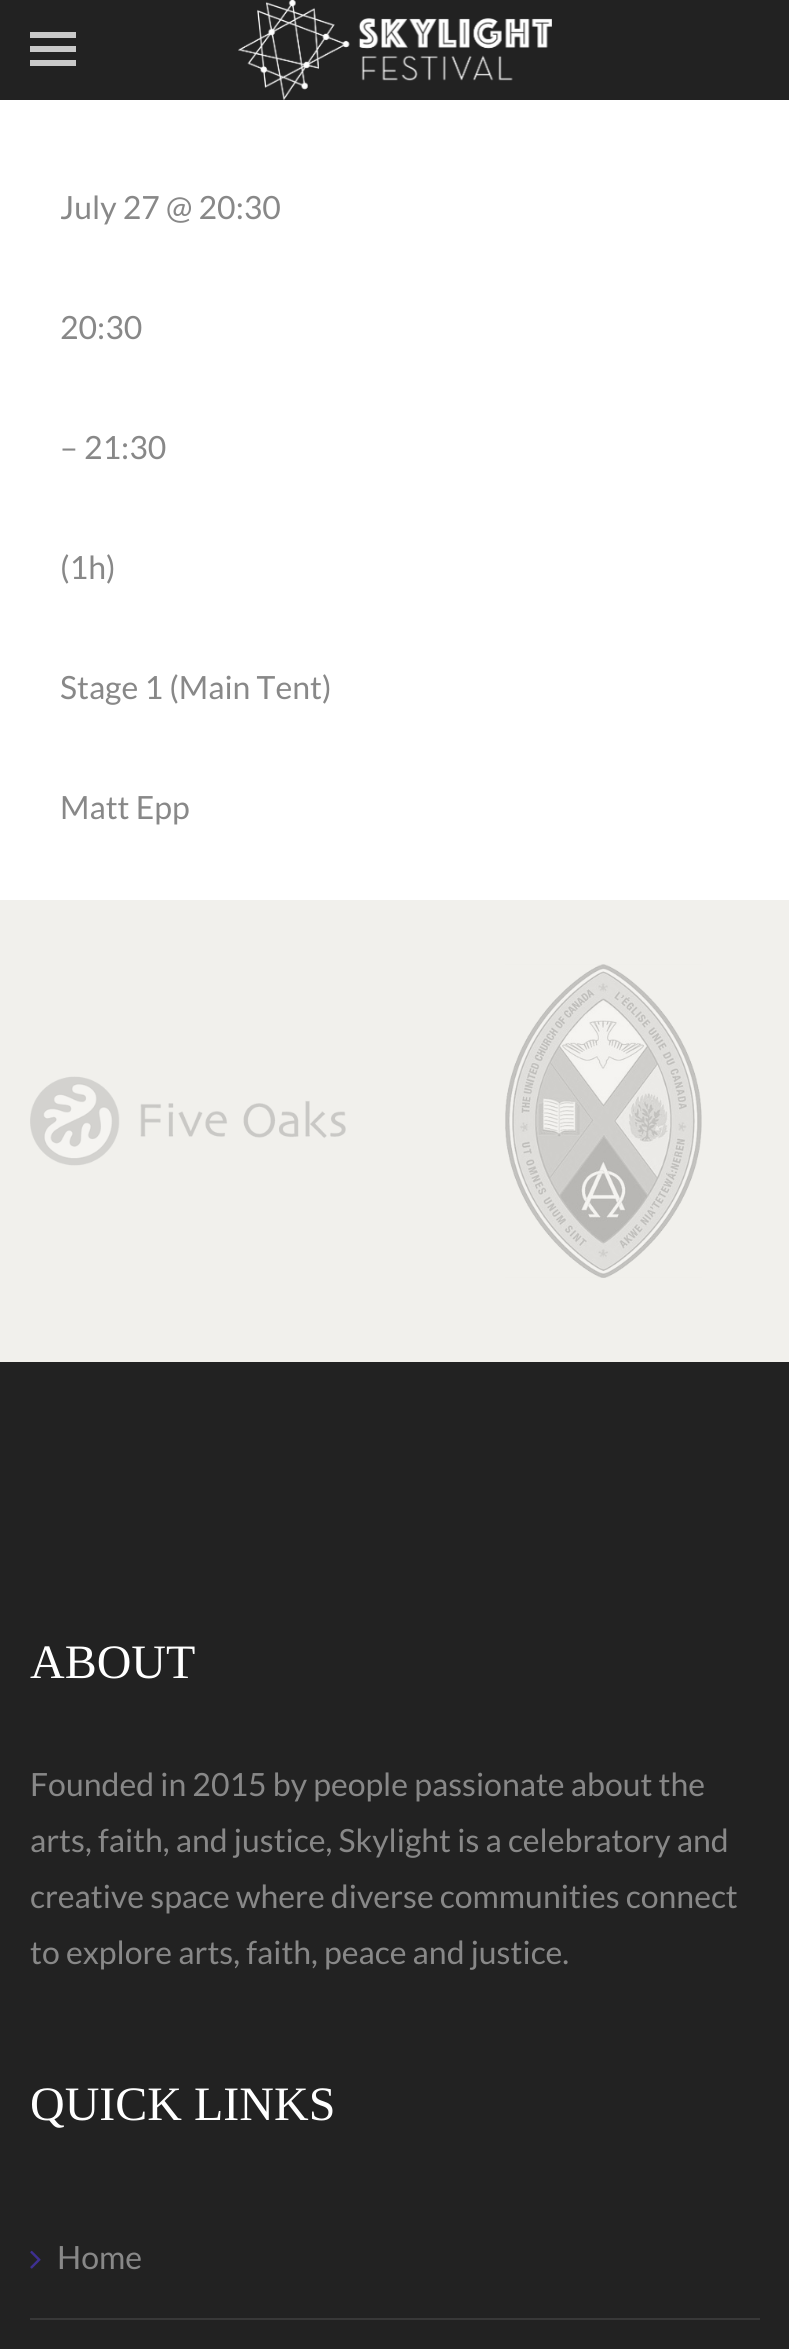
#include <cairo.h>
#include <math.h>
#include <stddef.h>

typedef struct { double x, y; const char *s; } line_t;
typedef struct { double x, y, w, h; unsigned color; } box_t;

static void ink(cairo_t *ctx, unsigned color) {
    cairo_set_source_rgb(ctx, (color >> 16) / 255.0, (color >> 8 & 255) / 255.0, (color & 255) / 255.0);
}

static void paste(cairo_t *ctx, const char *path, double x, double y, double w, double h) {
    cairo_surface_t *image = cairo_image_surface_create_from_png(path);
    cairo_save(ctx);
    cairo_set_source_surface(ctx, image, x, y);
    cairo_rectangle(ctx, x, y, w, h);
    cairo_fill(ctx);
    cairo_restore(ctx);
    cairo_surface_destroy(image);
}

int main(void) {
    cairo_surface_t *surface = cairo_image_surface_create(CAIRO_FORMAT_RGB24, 789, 2349);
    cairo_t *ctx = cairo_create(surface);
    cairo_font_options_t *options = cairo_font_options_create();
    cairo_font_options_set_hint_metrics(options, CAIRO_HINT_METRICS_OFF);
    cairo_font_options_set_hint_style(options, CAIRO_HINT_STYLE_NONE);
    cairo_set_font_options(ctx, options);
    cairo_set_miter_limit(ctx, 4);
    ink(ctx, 0xFFFFFF);
    cairo_paint(ctx);
    ink(ctx, 0x222222);
    cairo_rectangle(ctx, 0, 0, 789, 100);
    cairo_fill(ctx);
    paste(ctx, "media/1.png", 238, 0, 314, 100);
    {
        static const box_t items[] = {
            {30, 46, 46, 6, 0xC9C9C9},
            {30, 32, 46, 6, 0xC9C9C9},
            {30, 60, 46, 6, 0xC9C9C9},
        };
        for (size_t i = 0; i < sizeof items / sizeof *items; i++) {
            ink(ctx, items[i].color);
            cairo_rectangle(ctx, items[i].x, items[i].y, items[i].w, items[i].h);
            cairo_fill(ctx);
        }
    }
    cairo_select_font_face(ctx, "Lato", CAIRO_FONT_SLANT_NORMAL, CAIRO_FONT_WEIGHT_NORMAL);
    cairo_set_font_size(ctx, 32);
    ink(ctx, 0x888888);
    {
        static const line_t items[] = {
            {60, 219, "July 27 @ 20:30"},
            {60, 339, "20:30"},
            {60, 459, "– 21:30"},
            {60, 579, "(1h)"},
            {60, 699, "Stage 1 (Main Tent)"},
            {60, 819, "Matt Epp"},
        };
        for (size_t i = 0; i < sizeof items / sizeof *items; i++) {
            cairo_move_to(ctx, items[i].x, items[i].y);
            cairo_show_text(ctx, items[i].s);
        }
    }
    ink(ctx, 0xF1F0EC);
    cairo_rectangle(ctx, 0, 900, 789, 462);
    cairo_fill(ctx);
    paste(ctx, "media/2.png", 30, 1076, 316, 90);
    paste(ctx, "media/3.png", 505, 964, 197, 314);
    ink(ctx, 0x222222);
    cairo_rectangle(ctx, 0, 1362, 789, 987);
    cairo_fill(ctx);
    cairo_select_font_face(ctx, "Liberation Serif", CAIRO_FONT_SLANT_NORMAL, CAIRO_FONT_WEIGHT_NORMAL);
    cairo_set_font_size(ctx, 48);
    ink(ctx, 0xFFFFFF);
    cairo_move_to(ctx, 30, 1678);
    cairo_show_text(ctx, "ABOUT");
    cairo_select_font_face(ctx, "Lato", CAIRO_FONT_SLANT_NORMAL, CAIRO_FONT_WEIGHT_NORMAL);
    cairo_set_font_size(ctx, 32);
    ink(ctx, 0x888888);
    {
        static const line_t items[] = {
            {30, 1796, "Founded in 2015 by people passionate about the"},
            {30, 1852, "arts, faith, and justice, Skylight is a celebratory and"},
            {30, 1908, "creative space where diverse communities connect"},
            {30, 1964, "to explore arts, faith, peace and justice."},
        };
        for (size_t i = 0; i < sizeof items / sizeof *items; i++) {
            cairo_move_to(ctx, items[i].x, items[i].y);
            cairo_show_text(ctx, items[i].s);
        }
    }
    cairo_select_font_face(ctx, "Liberation Serif", CAIRO_FONT_SLANT_NORMAL, CAIRO_FONT_WEIGHT_NORMAL);
    cairo_set_font_size(ctx, 48);
    ink(ctx, 0xFFFFFF);
    cairo_move_to(ctx, 30, 2120);
    cairo_show_text(ctx, "QUICK LINKS");
    ink(ctx, 0x383838);
    cairo_rectangle(ctx, 30, 2318, 730, 2);
    cairo_fill(ctx);
    paste(ctx, "media/4.png", 30, 2250, 11, 19);
    cairo_select_font_face(ctx, "Lato", CAIRO_FONT_SLANT_NORMAL, CAIRO_FONT_WEIGHT_NORMAL);
    cairo_set_font_size(ctx, 32);
    ink(ctx, 0x888888);
    cairo_move_to(ctx, 57, 2269);
    cairo_show_text(ctx, "Home");
    cairo_surface_write_to_png(surface, "image.png");
    cairo_font_options_destroy(options);
    cairo_destroy(ctx);
    cairo_surface_destroy(surface);
    return 0;
}
